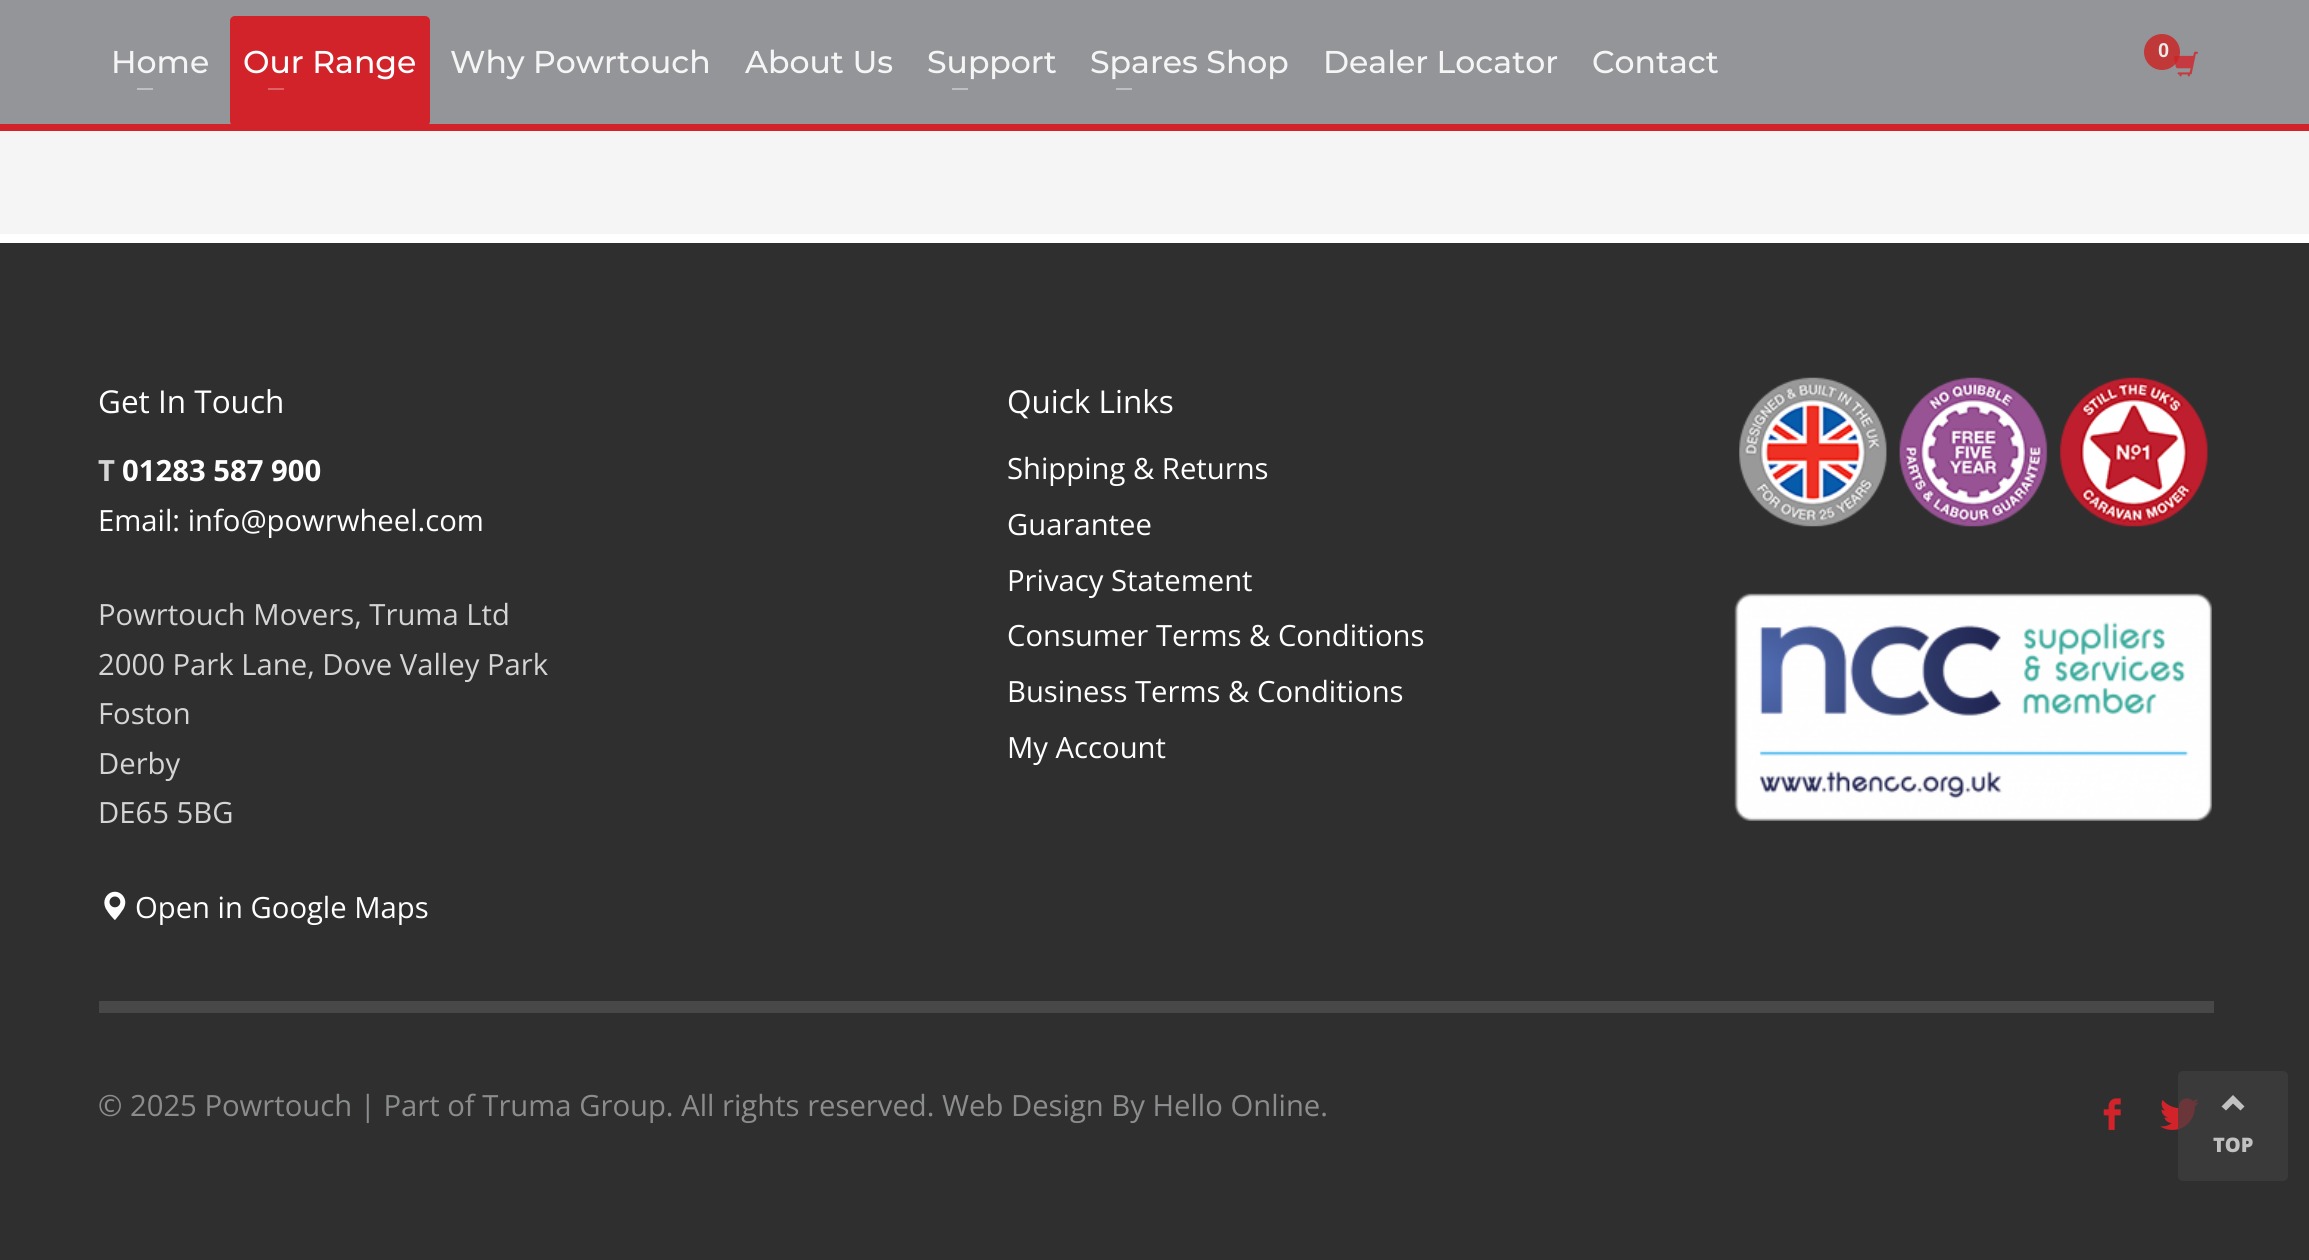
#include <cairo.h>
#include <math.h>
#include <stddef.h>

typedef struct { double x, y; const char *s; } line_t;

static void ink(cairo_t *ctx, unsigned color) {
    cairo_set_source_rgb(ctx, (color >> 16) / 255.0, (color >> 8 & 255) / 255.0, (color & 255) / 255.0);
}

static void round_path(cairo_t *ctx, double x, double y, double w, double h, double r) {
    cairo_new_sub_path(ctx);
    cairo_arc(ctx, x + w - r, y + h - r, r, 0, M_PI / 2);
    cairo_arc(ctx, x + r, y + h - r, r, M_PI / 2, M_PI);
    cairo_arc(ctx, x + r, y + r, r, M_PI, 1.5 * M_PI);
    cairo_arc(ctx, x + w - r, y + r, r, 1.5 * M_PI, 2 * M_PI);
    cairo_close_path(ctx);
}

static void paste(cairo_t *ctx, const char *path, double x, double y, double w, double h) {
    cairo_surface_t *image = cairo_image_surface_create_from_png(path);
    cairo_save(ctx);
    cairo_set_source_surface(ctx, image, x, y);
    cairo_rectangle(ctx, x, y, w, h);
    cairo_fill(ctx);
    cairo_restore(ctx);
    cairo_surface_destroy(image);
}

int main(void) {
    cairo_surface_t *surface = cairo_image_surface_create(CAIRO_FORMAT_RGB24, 2309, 1260);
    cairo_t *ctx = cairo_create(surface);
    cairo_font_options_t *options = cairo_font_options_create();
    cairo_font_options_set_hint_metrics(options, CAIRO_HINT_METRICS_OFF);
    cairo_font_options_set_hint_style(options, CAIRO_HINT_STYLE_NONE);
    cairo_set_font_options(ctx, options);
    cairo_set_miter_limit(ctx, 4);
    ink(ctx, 0xF5F5F5);
    cairo_paint(ctx);
    ink(ctx, 0x939598);
    cairo_rectangle(ctx, 0, 0, 2309, 124);
    cairo_fill(ctx);
    ink(ctx, 0xD2232A);
    cairo_rectangle(ctx, 0, 124, 2309, 7);
    cairo_fill(ctx);
    cairo_select_font_face(ctx, "Montserrat Medium", CAIRO_FONT_SLANT_NORMAL, CAIRO_FONT_WEIGHT_NORMAL);
    cairo_set_font_size(ctx, 31.5);
    ink(ctx, 0xF5F5F5);
    cairo_move_to(ctx, 111, 73);
    cairo_show_text(ctx, "Home");
    ink(ctx, 0xBEBFC1);
    cairo_rectangle(ctx, 137, 88, 16, 2);
    cairo_fill(ctx);
    ink(ctx, 0xD2232A);
    round_path(ctx, 230, 16, 200, 110, 5);
    cairo_fill(ctx);
    ink(ctx, 0xFFFFFF);
    cairo_move_to(ctx, 243, 73);
    cairo_show_text(ctx, "Our Range");
    ink(ctx, 0xDF6166);
    cairo_rectangle(ctx, 268, 88, 16, 2);
    cairo_fill(ctx);
    ink(ctx, 0xF5F5F5);
    {
        static const line_t items[] = {
            {450, 73, "Why Powrtouch"},
            {745, 73, "About Us"},
            {927, 73, "Support"},
        };
        for (size_t i = 0; i < sizeof items / sizeof *items; i++) {
            cairo_move_to(ctx, items[i].x, items[i].y);
            cairo_show_text(ctx, items[i].s);
        }
    }
    ink(ctx, 0xBEBFC1);
    cairo_rectangle(ctx, 952, 88, 16, 2);
    cairo_fill(ctx);
    ink(ctx, 0xF5F5F5);
    cairo_move_to(ctx, 1090, 73);
    cairo_show_text(ctx, "Spares Shop");
    ink(ctx, 0xBEBFC1);
    cairo_rectangle(ctx, 1116, 88, 16, 2);
    cairo_fill(ctx);
    ink(ctx, 0xF5F5F5);
    cairo_move_to(ctx, 1323, 73);
    cairo_show_text(ctx, "Dealer Locator");
    cairo_move_to(ctx, 1592, 73);
    cairo_show_text(ctx, "Contact");
    paste(ctx, "media/1.png", 2173, 51, 25, 26);
    cairo_set_source_rgba(ctx, 0.804, 0.129, 0.133, 0.8);
    cairo_arc(ctx, 2162, 52, 18, 0, 2 * M_PI);
    cairo_fill(ctx);
    cairo_select_font_face(ctx, "Liberation Sans", CAIRO_FONT_SLANT_NORMAL, CAIRO_FONT_WEIGHT_BOLD);
    cairo_set_font_size(ctx, 20);
    ink(ctx, 0xE9EAEA);
    cairo_move_to(ctx, 2158, 57);
    cairo_show_text(ctx, "0");
    ink(ctx, 0x2F2F2F);
    cairo_rectangle(ctx, 0, 243, 2309, 1017);
    cairo_fill(ctx);
    ink(ctx, 0xFFFFFF);
    cairo_rectangle(ctx, 0, 234, 2309, 9);
    cairo_fill(ctx);
    cairo_select_font_face(ctx, "Open Sans", CAIRO_FONT_SLANT_NORMAL, CAIRO_FONT_WEIGHT_NORMAL);
    cairo_set_font_size(ctx, 31.5);
    cairo_move_to(ctx, 98, 413);
    cairo_show_text(ctx, "Get In Touch");
    cairo_select_font_face(ctx, "Open Sans", CAIRO_FONT_SLANT_NORMAL, CAIRO_FONT_WEIGHT_BOLD);
    cairo_set_font_size(ctx, 29.25);
    ink(ctx, 0xD5D5D5);
    cairo_move_to(ctx, 98, 481);
    cairo_show_text(ctx, "T");
    ink(ctx, 0xFFFFFF);
    cairo_move_to(ctx, 122, 481);
    cairo_show_text(ctx, "01283 587 900");
    cairo_select_font_face(ctx, "Open Sans", CAIRO_FONT_SLANT_NORMAL, CAIRO_FONT_WEIGHT_NORMAL);
    cairo_move_to(ctx, 98, 531);
    cairo_show_text(ctx, "Email: info@powrwheel.com");
    ink(ctx, 0xD5D5D5);
    {
        static const line_t items[] = {
            {98, 625, "Powrtouch Movers, Truma Ltd"},
            {98, 675, "2000 Park Lane, Dove Valley Park"},
            {98, 724, "Foston"},
            {98, 774, "Derby"},
            {98, 823, "DE65 5BG"},
        };
        for (size_t i = 0; i < sizeof items / sizeof *items; i++) {
            cairo_move_to(ctx, items[i].x, items[i].y);
            cairo_show_text(ctx, items[i].s);
        }
    }
    paste(ctx, "media/2.png", 104, 891, 22, 29);
    ink(ctx, 0xFFFFFF);
    cairo_move_to(ctx, 135, 918);
    cairo_show_text(ctx, "Open in Google Maps");
    cairo_set_font_size(ctx, 31.5);
    cairo_move_to(ctx, 1007, 413);
    cairo_show_text(ctx, "Quick Links");
    cairo_set_font_size(ctx, 29.25);
    {
        static const line_t items[] = {
            {1007, 479, "Shipping & Returns"},
            {1007, 535, "Guarantee"},
            {1007, 591, "Privacy Statement"},
            {1007, 646, "Consumer Terms & Conditions"},
            {1007, 702, "Business Terms & Conditions"},
            {1007, 758, "My Account"},
        };
        for (size_t i = 0; i < sizeof items / sizeof *items; i++) {
            cairo_move_to(ctx, items[i].x, items[i].y);
            cairo_show_text(ctx, items[i].s);
        }
    }
    paste(ctx, "media/3.png", 1739, 377, 469, 150);
    paste(ctx, "media/4.png", 1734, 593, 478, 228);
    ink(ctx, 0x484848);
    cairo_rectangle(ctx, 99, 1001, 2115, 12);
    cairo_fill(ctx);
    ink(ctx, 0x8B8C8D);
    cairo_move_to(ctx, 98, 1116);
    cairo_show_text(ctx, "© 2025 Powrtouch | Part of Truma Group. All rights reserved. Web Design By Hello Online.");
    paste(ctx, "media/5.png", 2103, 1098, 18, 32);
    paste(ctx, "media/6.png", 2160, 1098, 39, 32);
    cairo_set_source_rgba(ctx, 0.251, 0.251, 0.251, 0.7);
    round_path(ctx, 2178, 1071, 110, 110, 5);
    cairo_fill(ctx);
    ink(ctx, 0xC1C1C1);
    cairo_new_path(ctx);
    cairo_move_to(ctx, 2233, 1095);
    cairo_line_to(ctx, 2244.5, 1106.5);
    cairo_line_to(ctx, 2240.5, 1110.5);
    cairo_line_to(ctx, 2233, 1103.5);
    cairo_line_to(ctx, 2226, 1110.5);
    cairo_line_to(ctx, 2221.5, 1106.5);
    cairo_close_path(ctx);
    cairo_fill(ctx);
    cairo_select_font_face(ctx, "Open Sans ExtraBold", CAIRO_FONT_SLANT_NORMAL, CAIRO_FONT_WEIGHT_NORMAL);
    cairo_set_font_size(ctx, 20);
    cairo_move_to(ctx, 2213, 1152);
    cairo_show_text(ctx, "TOP");
    cairo_surface_write_to_png(surface, "image.png");
    cairo_font_options_destroy(options);
    cairo_destroy(ctx);
    cairo_surface_destroy(surface);
    return 0;
}
